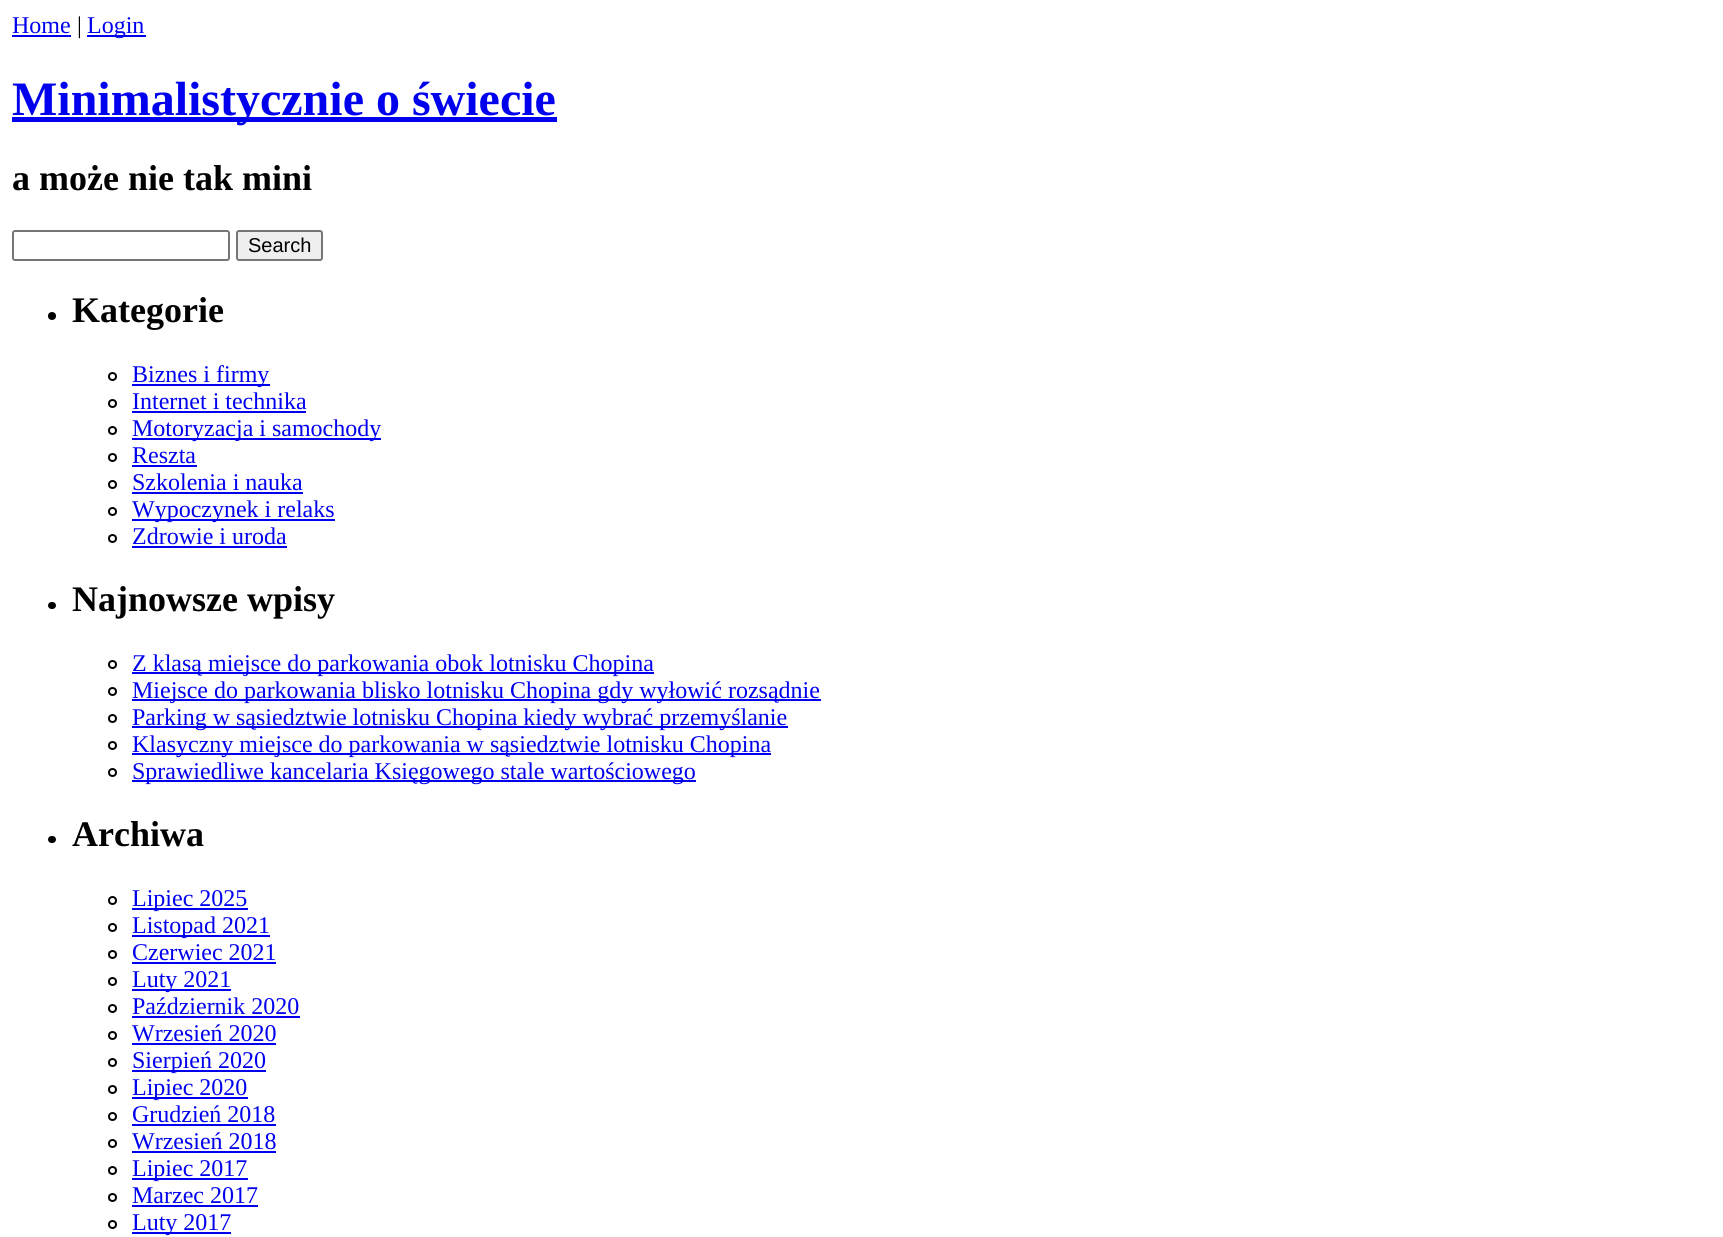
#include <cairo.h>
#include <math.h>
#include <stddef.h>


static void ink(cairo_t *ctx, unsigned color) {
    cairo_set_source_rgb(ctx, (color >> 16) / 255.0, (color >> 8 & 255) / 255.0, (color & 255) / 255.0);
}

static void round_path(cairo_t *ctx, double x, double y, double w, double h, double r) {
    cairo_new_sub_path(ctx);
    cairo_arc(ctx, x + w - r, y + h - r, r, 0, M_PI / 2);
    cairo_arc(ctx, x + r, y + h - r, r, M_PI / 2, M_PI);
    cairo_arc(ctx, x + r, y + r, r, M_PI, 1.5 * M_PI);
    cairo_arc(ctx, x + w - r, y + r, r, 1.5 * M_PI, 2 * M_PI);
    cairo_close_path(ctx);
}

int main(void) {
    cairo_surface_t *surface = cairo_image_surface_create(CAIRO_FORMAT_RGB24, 1723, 1237);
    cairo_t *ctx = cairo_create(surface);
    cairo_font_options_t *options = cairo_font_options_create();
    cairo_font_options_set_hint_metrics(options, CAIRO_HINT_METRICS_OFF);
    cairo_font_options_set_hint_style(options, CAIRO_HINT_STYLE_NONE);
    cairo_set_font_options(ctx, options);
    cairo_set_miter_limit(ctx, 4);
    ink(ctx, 0xFFFFFF);
    cairo_paint(ctx);
    cairo_select_font_face(ctx, "Liberation Serif", CAIRO_FONT_SLANT_NORMAL, CAIRO_FONT_WEIGHT_NORMAL);
    cairo_set_font_size(ctx, 24);
    ink(ctx, 0x0000EE);
    cairo_move_to(ctx, 12, 33);
    cairo_show_text(ctx, "Home");
    cairo_rectangle(ctx, 12, 35, 59, 2);
    cairo_fill(ctx);
    ink(ctx, 0x000000);
    cairo_move_to(ctx, 77, 33);
    cairo_show_text(ctx, "|");
    ink(ctx, 0x0000EE);
    cairo_rectangle(ctx, 87, 35, 59, 2);
    cairo_fill(ctx);
    cairo_move_to(ctx, 87, 33);
    cairo_show_text(ctx, "Login");
    cairo_rectangle(ctx, 12, 117, 545, 5);
    cairo_fill(ctx);
    cairo_select_font_face(ctx, "Liberation Serif", CAIRO_FONT_SLANT_NORMAL, CAIRO_FONT_WEIGHT_BOLD);
    cairo_set_font_size(ctx, 48);
    cairo_move_to(ctx, 12, 115);
    cairo_show_text(ctx, "Minimalistycznie o świecie");
    cairo_set_font_size(ctx, 36);
    ink(ctx, 0x000000);
    cairo_move_to(ctx, 12, 190);
    cairo_show_text(ctx, "a może nie tak mini");
    round_path(ctx, 13, 231, 216, 29, 2);
    ink(ctx, 0x767676);
    cairo_stroke(ctx);
    ink(ctx, 0xEFEFEF);
    round_path(ctx, 237, 231, 85, 29, 2);
    cairo_fill_preserve(ctx);
    ink(ctx, 0x767676);
    cairo_stroke(ctx);
    cairo_select_font_face(ctx, "Liberation Sans", CAIRO_FONT_SLANT_NORMAL, CAIRO_FONT_WEIGHT_NORMAL);
    cairo_set_font_size(ctx, 20);
    ink(ctx, 0x000000);
    cairo_move_to(ctx, 248, 252);
    cairo_show_text(ctx, "Search");
    cairo_new_path(ctx);
    cairo_arc(ctx, 52, 316, 4, 0, 2 * M_PI);
    cairo_fill(ctx);
    cairo_select_font_face(ctx, "Liberation Serif", CAIRO_FONT_SLANT_NORMAL, CAIRO_FONT_WEIGHT_BOLD);
    cairo_set_font_size(ctx, 36);
    cairo_move_to(ctx, 72, 322);
    cairo_show_text(ctx, "Kategorie");
    cairo_new_path(ctx);
    cairo_arc(ctx, 112.5, 376.5, 3.5, 0, 2 * M_PI);
    cairo_stroke(ctx);
    ink(ctx, 0x0000EE);
    cairo_rectangle(ctx, 132, 384, 138, 2);
    cairo_fill(ctx);
    cairo_select_font_face(ctx, "Liberation Serif", CAIRO_FONT_SLANT_NORMAL, CAIRO_FONT_WEIGHT_NORMAL);
    cairo_set_font_size(ctx, 24);
    cairo_move_to(ctx, 132, 382);
    cairo_show_text(ctx, "Biznes i firmy");
    cairo_new_path(ctx);
    cairo_arc(ctx, 112.5, 403.5, 3.5, 0, 2 * M_PI);
    ink(ctx, 0x000000);
    cairo_stroke(ctx);
    ink(ctx, 0x0000EE);
    cairo_move_to(ctx, 132, 409);
    cairo_show_text(ctx, "Internet i technika");
    cairo_rectangle(ctx, 132, 411, 174, 2);
    cairo_fill(ctx);
    cairo_arc(ctx, 112.5, 430.5, 3.5, 0, 2 * M_PI);
    ink(ctx, 0x000000);
    cairo_stroke(ctx);
    ink(ctx, 0x0000EE);
    cairo_rectangle(ctx, 132, 438, 249, 2);
    cairo_fill(ctx);
    cairo_move_to(ctx, 132, 436);
    cairo_show_text(ctx, "Motoryzacja i samochody");
    cairo_new_path(ctx);
    cairo_arc(ctx, 112.5, 457.5, 3.5, 0, 2 * M_PI);
    ink(ctx, 0x000000);
    cairo_stroke(ctx);
    ink(ctx, 0x0000EE);
    cairo_move_to(ctx, 132, 463);
    cairo_show_text(ctx, "Reszta");
    cairo_rectangle(ctx, 132, 465, 65, 2);
    cairo_fill(ctx);
    cairo_arc(ctx, 112.5, 484.5, 3.5, 0, 2 * M_PI);
    ink(ctx, 0x000000);
    cairo_stroke(ctx);
    ink(ctx, 0x0000EE);
    cairo_move_to(ctx, 132, 490);
    cairo_show_text(ctx, "Szkolenia i nauka");
    cairo_rectangle(ctx, 132, 492, 171, 2);
    cairo_fill(ctx);
    cairo_arc(ctx, 112.5, 511.5, 3.5, 0, 2 * M_PI);
    ink(ctx, 0x000000);
    cairo_stroke(ctx);
    ink(ctx, 0x0000EE);
    cairo_rectangle(ctx, 132, 519, 203, 2);
    cairo_fill(ctx);
    cairo_move_to(ctx, 132, 517);
    cairo_show_text(ctx, "Wypoczynek i relaks");
    cairo_new_path(ctx);
    cairo_arc(ctx, 112.5, 538.5, 3.5, 0, 2 * M_PI);
    ink(ctx, 0x000000);
    cairo_stroke(ctx);
    ink(ctx, 0x0000EE);
    cairo_move_to(ctx, 132, 544);
    cairo_show_text(ctx, "Zdrowie i uroda");
    cairo_rectangle(ctx, 132, 546, 155, 2);
    cairo_fill(ctx);
    ink(ctx, 0x000000);
    round_path(ctx, 48, 602, 8, 7, 3.5);
    cairo_fill(ctx);
    cairo_select_font_face(ctx, "Liberation Serif", CAIRO_FONT_SLANT_NORMAL, CAIRO_FONT_WEIGHT_BOLD);
    cairo_set_font_size(ctx, 36);
    cairo_move_to(ctx, 72, 611);
    cairo_show_text(ctx, "Najnowsze wpisy");
    cairo_new_path(ctx);
    cairo_arc(ctx, 112.5, 664.5, 3.5, 0, 2 * M_PI);
    cairo_stroke(ctx);
    ink(ctx, 0x0000EE);
    cairo_rectangle(ctx, 132, 672, 522, 2);
    cairo_fill(ctx);
    cairo_select_font_face(ctx, "Liberation Serif", CAIRO_FONT_SLANT_NORMAL, CAIRO_FONT_WEIGHT_NORMAL);
    cairo_set_font_size(ctx, 24);
    cairo_move_to(ctx, 132, 671);
    cairo_show_text(ctx, "Z klasą miejsce do parkowania obok lotnisku Chopina");
    cairo_new_path(ctx);
    cairo_arc(ctx, 112.5, 691.5, 3.5, 0, 2 * M_PI);
    ink(ctx, 0x000000);
    cairo_stroke(ctx);
    ink(ctx, 0x0000EE);
    cairo_rectangle(ctx, 132, 699, 689, 2);
    cairo_fill(ctx);
    cairo_move_to(ctx, 132, 698);
    cairo_show_text(ctx, "Miejsce do parkowania blisko lotnisku Chopina gdy wyłowić rozsądnie");
    cairo_new_path(ctx);
    cairo_arc(ctx, 112.5, 718.5, 3.5, 0, 2 * M_PI);
    ink(ctx, 0x000000);
    cairo_stroke(ctx);
    ink(ctx, 0x0000EE);
    cairo_rectangle(ctx, 132, 726, 656, 2);
    cairo_fill(ctx);
    cairo_move_to(ctx, 132, 725);
    cairo_show_text(ctx, "Parking w sąsiedztwie lotnisku Chopina kiedy wybrać przemyślanie");
    cairo_new_path(ctx);
    cairo_arc(ctx, 112.5, 745.5, 3.5, 0, 2 * M_PI);
    ink(ctx, 0x000000);
    cairo_stroke(ctx);
    ink(ctx, 0x0000EE);
    cairo_rectangle(ctx, 132, 753, 639, 2);
    cairo_fill(ctx);
    cairo_move_to(ctx, 132, 752);
    cairo_show_text(ctx, "Klasyczny miejsce do parkowania w sąsiedztwie lotnisku Chopina");
    cairo_new_path(ctx);
    cairo_arc(ctx, 112.5, 772.5, 3.5, 0, 2 * M_PI);
    ink(ctx, 0x000000);
    cairo_stroke(ctx);
    ink(ctx, 0x0000EE);
    cairo_rectangle(ctx, 132, 780, 564, 2);
    cairo_fill(ctx);
    cairo_move_to(ctx, 132, 779);
    cairo_show_text(ctx, "Sprawiedliwe kancelaria Księgowego stale wartościowego");
    ink(ctx, 0x000000);
    round_path(ctx, 48, 836, 8, 7, 3.5);
    cairo_fill(ctx);
    cairo_select_font_face(ctx, "Liberation Serif", CAIRO_FONT_SLANT_NORMAL, CAIRO_FONT_WEIGHT_BOLD);
    cairo_set_font_size(ctx, 36);
    cairo_move_to(ctx, 72, 846);
    cairo_show_text(ctx, "Archiwa");
    cairo_new_path(ctx);
    cairo_arc(ctx, 112.5, 900.5, 3.5, 0, 2 * M_PI);
    cairo_stroke(ctx);
    ink(ctx, 0x0000EE);
    cairo_rectangle(ctx, 132, 908, 116, 2);
    cairo_fill(ctx);
    cairo_select_font_face(ctx, "Liberation Serif", CAIRO_FONT_SLANT_NORMAL, CAIRO_FONT_WEIGHT_NORMAL);
    cairo_set_font_size(ctx, 24);
    cairo_move_to(ctx, 132, 906);
    cairo_show_text(ctx, "Lipiec 2025");
    cairo_new_path(ctx);
    cairo_arc(ctx, 112.5, 927.5, 3.5, 0, 2 * M_PI);
    ink(ctx, 0x000000);
    cairo_stroke(ctx);
    ink(ctx, 0x0000EE);
    cairo_rectangle(ctx, 132, 935, 138, 2);
    cairo_fill(ctx);
    cairo_move_to(ctx, 132, 933);
    cairo_show_text(ctx, "Listopad 2021");
    cairo_new_path(ctx);
    cairo_arc(ctx, 112.5, 954.5, 3.5, 0, 2 * M_PI);
    ink(ctx, 0x000000);
    cairo_stroke(ctx);
    ink(ctx, 0x0000EE);
    cairo_move_to(ctx, 132, 960);
    cairo_show_text(ctx, "Czerwiec 2021");
    cairo_rectangle(ctx, 132, 962, 144, 2);
    cairo_fill(ctx);
    cairo_arc(ctx, 112.5, 981.5, 3.5, 0, 2 * M_PI);
    ink(ctx, 0x000000);
    cairo_stroke(ctx);
    ink(ctx, 0x0000EE);
    cairo_rectangle(ctx, 132, 989, 99, 2);
    cairo_fill(ctx);
    cairo_move_to(ctx, 132, 987);
    cairo_show_text(ctx, "Luty 2021");
    cairo_new_path(ctx);
    cairo_arc(ctx, 112.5, 1008.5, 3.5, 0, 2 * M_PI);
    ink(ctx, 0x000000);
    cairo_stroke(ctx);
    ink(ctx, 0x0000EE);
    cairo_move_to(ctx, 132, 1014);
    cairo_show_text(ctx, "Październik 2020");
    cairo_rectangle(ctx, 132, 1016, 168, 2);
    cairo_fill(ctx);
    cairo_arc(ctx, 112.5, 1035.5, 3.5, 0, 2 * M_PI);
    ink(ctx, 0x000000);
    cairo_stroke(ctx);
    ink(ctx, 0x0000EE);
    cairo_move_to(ctx, 132, 1041);
    cairo_show_text(ctx, "Wrzesień 2020");
    cairo_rectangle(ctx, 132, 1043, 144, 2);
    cairo_fill(ctx);
    cairo_arc(ctx, 112.5, 1062.5, 3.5, 0, 2 * M_PI);
    ink(ctx, 0x000000);
    cairo_stroke(ctx);
    ink(ctx, 0x0000EE);
    cairo_rectangle(ctx, 132, 1070, 134, 2);
    cairo_fill(ctx);
    cairo_move_to(ctx, 132, 1068);
    cairo_show_text(ctx, "Sierpień 2020");
    cairo_new_path(ctx);
    cairo_arc(ctx, 112.5, 1089.5, 3.5, 0, 2 * M_PI);
    ink(ctx, 0x000000);
    cairo_stroke(ctx);
    ink(ctx, 0x0000EE);
    cairo_rectangle(ctx, 132, 1097, 116, 2);
    cairo_fill(ctx);
    cairo_move_to(ctx, 132, 1095);
    cairo_show_text(ctx, "Lipiec 2020");
    cairo_new_path(ctx);
    cairo_arc(ctx, 112.5, 1116.5, 3.5, 0, 2 * M_PI);
    ink(ctx, 0x000000);
    cairo_stroke(ctx);
    ink(ctx, 0x0000EE);
    cairo_move_to(ctx, 132, 1122);
    cairo_show_text(ctx, "Grudzień 2018");
    cairo_rectangle(ctx, 132, 1124, 144, 2);
    cairo_fill(ctx);
    cairo_arc(ctx, 112.5, 1143.5, 3.5, 0, 2 * M_PI);
    ink(ctx, 0x000000);
    cairo_stroke(ctx);
    ink(ctx, 0x0000EE);
    cairo_move_to(ctx, 132, 1149);
    cairo_show_text(ctx, "Wrzesień 2018");
    cairo_rectangle(ctx, 132, 1151, 144, 2);
    cairo_fill(ctx);
    cairo_arc(ctx, 112.5, 1170.5, 3.5, 0, 2 * M_PI);
    ink(ctx, 0x000000);
    cairo_stroke(ctx);
    ink(ctx, 0x0000EE);
    cairo_rectangle(ctx, 132, 1178, 116, 2);
    cairo_fill(ctx);
    cairo_move_to(ctx, 132, 1176);
    cairo_show_text(ctx, "Lipiec 2017");
    cairo_new_path(ctx);
    cairo_arc(ctx, 112.5, 1197.5, 3.5, 0, 2 * M_PI);
    ink(ctx, 0x000000);
    cairo_stroke(ctx);
    ink(ctx, 0x0000EE);
    cairo_move_to(ctx, 132, 1203);
    cairo_show_text(ctx, "Marzec 2017");
    cairo_rectangle(ctx, 132, 1205, 126, 2);
    cairo_fill(ctx);
    cairo_arc(ctx, 112.5, 1224.5, 3.5, 0, 2 * M_PI);
    ink(ctx, 0x000000);
    cairo_stroke(ctx);
    ink(ctx, 0x0000EE);
    cairo_rectangle(ctx, 132, 1232, 99, 2);
    cairo_fill(ctx);
    cairo_move_to(ctx, 132, 1230);
    cairo_show_text(ctx, "Luty 2017");
    cairo_surface_write_to_png(surface, "image.png");
    cairo_font_options_destroy(options);
    cairo_destroy(ctx);
    cairo_surface_destroy(surface);
    return 0;
}
